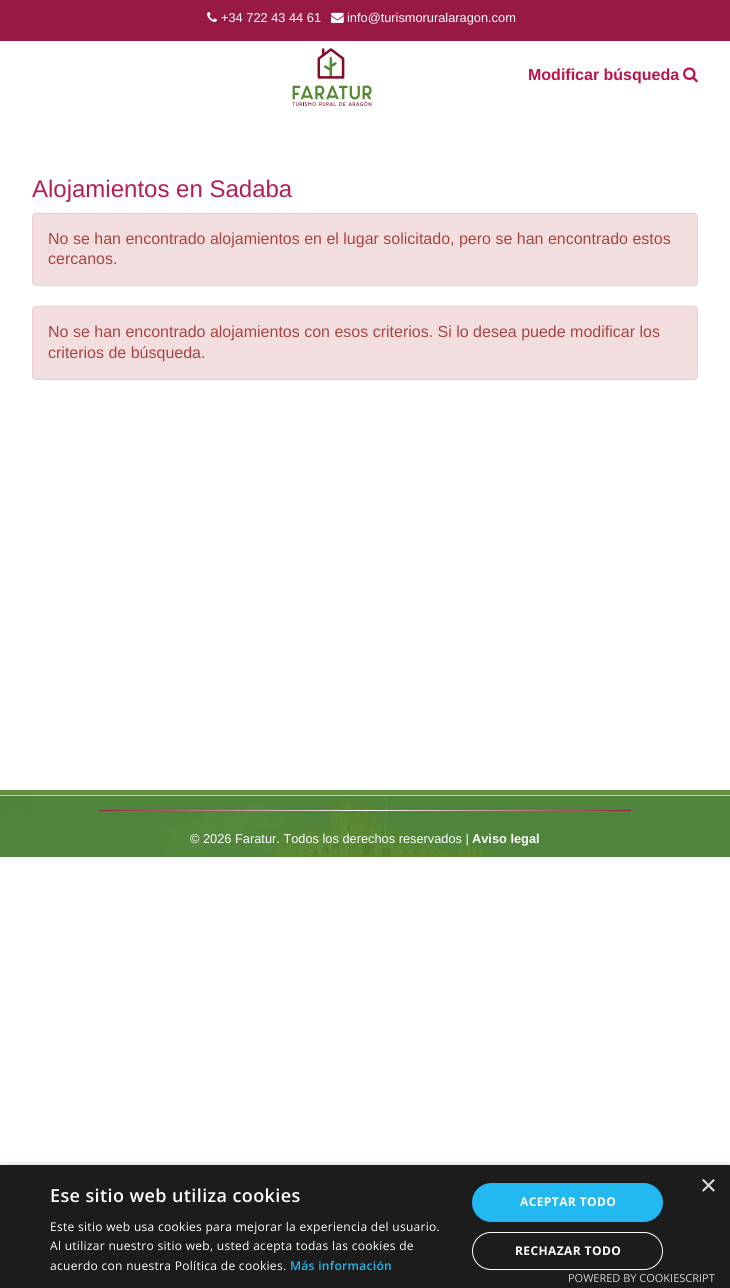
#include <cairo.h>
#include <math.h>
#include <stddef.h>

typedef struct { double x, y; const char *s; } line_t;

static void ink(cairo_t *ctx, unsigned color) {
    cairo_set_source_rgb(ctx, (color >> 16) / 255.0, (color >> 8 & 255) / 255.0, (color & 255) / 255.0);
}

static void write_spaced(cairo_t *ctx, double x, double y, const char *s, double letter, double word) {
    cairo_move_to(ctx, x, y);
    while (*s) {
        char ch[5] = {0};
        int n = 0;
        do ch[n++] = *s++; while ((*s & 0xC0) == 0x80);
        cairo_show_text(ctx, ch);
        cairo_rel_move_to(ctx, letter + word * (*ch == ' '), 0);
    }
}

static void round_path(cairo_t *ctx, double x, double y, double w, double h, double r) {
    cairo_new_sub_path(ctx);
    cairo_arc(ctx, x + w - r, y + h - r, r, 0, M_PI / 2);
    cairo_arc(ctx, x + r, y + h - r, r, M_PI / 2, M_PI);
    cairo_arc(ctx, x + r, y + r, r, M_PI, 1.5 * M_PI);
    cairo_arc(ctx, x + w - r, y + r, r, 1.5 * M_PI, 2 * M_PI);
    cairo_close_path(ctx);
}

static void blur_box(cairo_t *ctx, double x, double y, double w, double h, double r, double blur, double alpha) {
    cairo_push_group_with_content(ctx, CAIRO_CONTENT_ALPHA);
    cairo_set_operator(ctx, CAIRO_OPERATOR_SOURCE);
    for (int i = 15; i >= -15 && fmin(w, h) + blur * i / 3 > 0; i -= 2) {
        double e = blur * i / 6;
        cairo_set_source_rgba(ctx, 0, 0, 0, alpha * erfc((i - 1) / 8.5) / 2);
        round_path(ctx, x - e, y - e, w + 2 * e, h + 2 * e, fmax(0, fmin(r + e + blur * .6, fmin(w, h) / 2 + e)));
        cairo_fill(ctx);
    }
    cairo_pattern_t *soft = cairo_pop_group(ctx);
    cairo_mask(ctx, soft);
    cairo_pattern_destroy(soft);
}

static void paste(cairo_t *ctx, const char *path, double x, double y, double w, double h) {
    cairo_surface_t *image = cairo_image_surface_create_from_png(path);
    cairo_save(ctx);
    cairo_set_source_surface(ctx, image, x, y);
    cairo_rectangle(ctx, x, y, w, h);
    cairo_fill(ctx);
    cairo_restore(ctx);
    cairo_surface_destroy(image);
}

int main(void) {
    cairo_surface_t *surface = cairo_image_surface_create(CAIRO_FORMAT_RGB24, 730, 1288);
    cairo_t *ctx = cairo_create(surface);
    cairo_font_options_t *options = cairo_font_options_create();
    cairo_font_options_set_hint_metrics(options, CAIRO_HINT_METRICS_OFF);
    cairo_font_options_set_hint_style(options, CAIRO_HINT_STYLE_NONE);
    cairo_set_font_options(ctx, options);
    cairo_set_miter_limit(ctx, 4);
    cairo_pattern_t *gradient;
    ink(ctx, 0xFFFFFF);
    cairo_paint(ctx);
    ink(ctx, 0x629241);
    cairo_rectangle(ctx, 0, 790, 730, 5);
    cairo_fill(ctx);
    ink(ctx, 0x981A44);
    cairo_rectangle(ctx, 0, 0, 730, 41);
    cairo_fill(ctx);
    paste(ctx, "media/1.png", 207, 12, 10, 10);
    cairo_select_font_face(ctx, "Liberation Sans", CAIRO_FONT_SLANT_NORMAL, CAIRO_FONT_WEIGHT_NORMAL);
    cairo_set_font_size(ctx, 12.8);
    ink(ctx, 0xFFFFFF);
    cairo_move_to(ctx, 221, 22);
    cairo_show_text(ctx, "+34 722 43 44 61");
    paste(ctx, "media/2.png", 331, 12, 13, 11);
    cairo_move_to(ctx, 347, 22);
    cairo_show_text(ctx, "info@turismoruralaragon.com");
    paste(ctx, "media/3.png", 292, 48, 80, 58);
    cairo_select_font_face(ctx, "Liberation Sans", CAIRO_FONT_SLANT_NORMAL, CAIRO_FONT_WEIGHT_BOLD);
    cairo_set_font_size(ctx, 16);
    ink(ctx, 0xBE1348);
    cairo_move_to(ctx, 528, 80);
    cairo_show_text(ctx, "Modificar búsqueda");
    paste(ctx, "media/4.png", 683, 67, 15, 16);
    ink(ctx, 0xCCCCCC);
    cairo_rectangle(ctx, 0, 795, 730, 1);
    cairo_fill(ctx);
    cairo_select_font_face(ctx, "Liberation Sans", CAIRO_FONT_SLANT_NORMAL, CAIRO_FONT_WEIGHT_NORMAL);
    cairo_set_font_size(ctx, 24);
    ink(ctx, 0xB51E50);
    cairo_move_to(ctx, 32, 197);
    cairo_show_text(ctx, "Alojamientos en Sadaba");
    ink(ctx, 0xF2DEDE);
    round_path(ctx, 32.5, 213.5, 665, 72, 3.5);
    cairo_fill_preserve(ctx);
    ink(ctx, 0xEBCCD1);
    cairo_set_line_width(ctx, 1);
    cairo_stroke(ctx);
    cairo_set_font_size(ctx, 16);
    ink(ctx, 0xA94442);
    cairo_move_to(ctx, 48, 244);
    cairo_show_text(ctx, "No se han encontrado alojamientos en el lugar solicitado, pero se han encontrado estos");
    cairo_move_to(ctx, 48, 264);
    cairo_show_text(ctx, "cercanos.");
    ink(ctx, 0xF2DEDE);
    round_path(ctx, 32.5, 306.5, 665, 73, 3.5);
    cairo_fill_preserve(ctx);
    ink(ctx, 0xEBCCD1);
    cairo_stroke(ctx);
    ink(ctx, 0xA94442);
    cairo_move_to(ctx, 48, 337);
    cairo_show_text(ctx, "No se han encontrado alojamientos con esos criterios. Si lo desea puede modificar los");
    cairo_move_to(ctx, 48, 358);
    cairo_show_text(ctx, "criterios de búsqueda.");
    paste(ctx, "media/5.png", 0, 796, 730, 61);
    gradient = cairo_pattern_create_linear(99, 811, 631, 811);
    cairo_pattern_add_color_stop_rgba(gradient, 0, 0.596, 0.102, 0.267, 1);
    cairo_pattern_add_color_stop_rgba(gradient, 0.5, 1, 1, 1, 1);
    cairo_pattern_add_color_stop_rgba(gradient, 1, 0.596, 0.102, 0.267, 1);
    cairo_set_source(ctx, gradient);
    cairo_pattern_destroy(gradient);
    cairo_rectangle(ctx, 99, 810, 532, 1);
    cairo_fill(ctx);
    cairo_set_font_size(ctx, 12.8);
    ink(ctx, 0xFFFFFF);
    cairo_move_to(ctx, 190, 843);
    cairo_show_text(ctx, "© 2026 Faratur. Todos los derechos reservados |");
    cairo_select_font_face(ctx, "Liberation Sans", CAIRO_FONT_SLANT_NORMAL, CAIRO_FONT_WEIGHT_BOLD);
    cairo_move_to(ctx, 472, 843);
    cairo_show_text(ctx, "Aviso legal");
    ink(ctx, 0x000000);
    blur_box(ctx, 1, 1167, 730, 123, 0, 4, 0.35);
    ink(ctx, 0x1C1C1C);
    cairo_rectangle(ctx, 0, 1165, 730, 123);
    cairo_fill(ctx);
    cairo_select_font_face(ctx, "Liberation Sans", CAIRO_FONT_SLANT_NORMAL, CAIRO_FONT_WEIGHT_NORMAL);
    cairo_set_font_size(ctx, 29);
    ink(ctx, 0xDDDDDD);
    cairo_move_to(ctx, 700, 1195);
    cairo_show_text(ctx, "×");
    cairo_select_font_face(ctx, "Open Sans SemiBold", CAIRO_FONT_SLANT_NORMAL, CAIRO_FONT_WEIGHT_NORMAL);
    cairo_set_font_size(ctx, 18);
    ink(ctx, 0xFFFFFF);
    write_spaced(ctx, 50, 1202, "Ese sitio web utiliza cookies", 0.4, 0);
    cairo_select_font_face(ctx, "Open Sans", CAIRO_FONT_SLANT_NORMAL, CAIRO_FONT_WEIGHT_NORMAL);
    cairo_set_font_size(ctx, 12);
    {
        static const line_t items[] = {
            {50, 1231, "Este sitio web usa cookies para mejorar la experiencia del usuario."},
            {50, 1250, "Al utilizar nuestro sitio web, usted acepta todas las cookies de"},
            {50, 1270, "acuerdo con nuestra Política de cookies."},
        };
        for (size_t i = 0; i < sizeof items / sizeof *items; i++) {
            write_spaced(ctx, items[i].x, items[i].y, items[i].s, 0.3, 0);
        }
    }
    cairo_select_font_face(ctx, "Open Sans SemiBold", CAIRO_FONT_SLANT_NORMAL, CAIRO_FONT_WEIGHT_NORMAL);
    ink(ctx, 0x22B8F0);
    write_spaced(ctx, 290, 1270, "Más información", 0.3, 0);
    round_path(ctx, 472, 1183, 191, 39, 19.5);
    cairo_fill(ctx);
    cairo_select_font_face(ctx, "Open Sans", CAIRO_FONT_SLANT_NORMAL, CAIRO_FONT_WEIGHT_BOLD);
    ink(ctx, 0xFFFFFF);
    write_spaced(ctx, 520, 1206, "ACEPTAR TODO", 0.4, 0);
    round_path(ctx, 472.5, 1232.5, 190, 37, 18.5);
    cairo_stroke(ctx);
    write_spaced(ctx, 515, 1255, "RECHAZAR TODO", 0.4, 0);
    cairo_select_font_face(ctx, "Open Sans", CAIRO_FONT_SLANT_NORMAL, CAIRO_FONT_WEIGHT_NORMAL);
    cairo_set_font_size(ctx, 11);
    ink(ctx, 0xD2D2D2);
    cairo_move_to(ctx, 568, 1282);
    cairo_show_text(ctx, "POWERED BY COOKIESCRIPT");
    cairo_surface_write_to_png(surface, "image.png");
    cairo_font_options_destroy(options);
    cairo_destroy(ctx);
    cairo_surface_destroy(surface);
    return 0;
}
